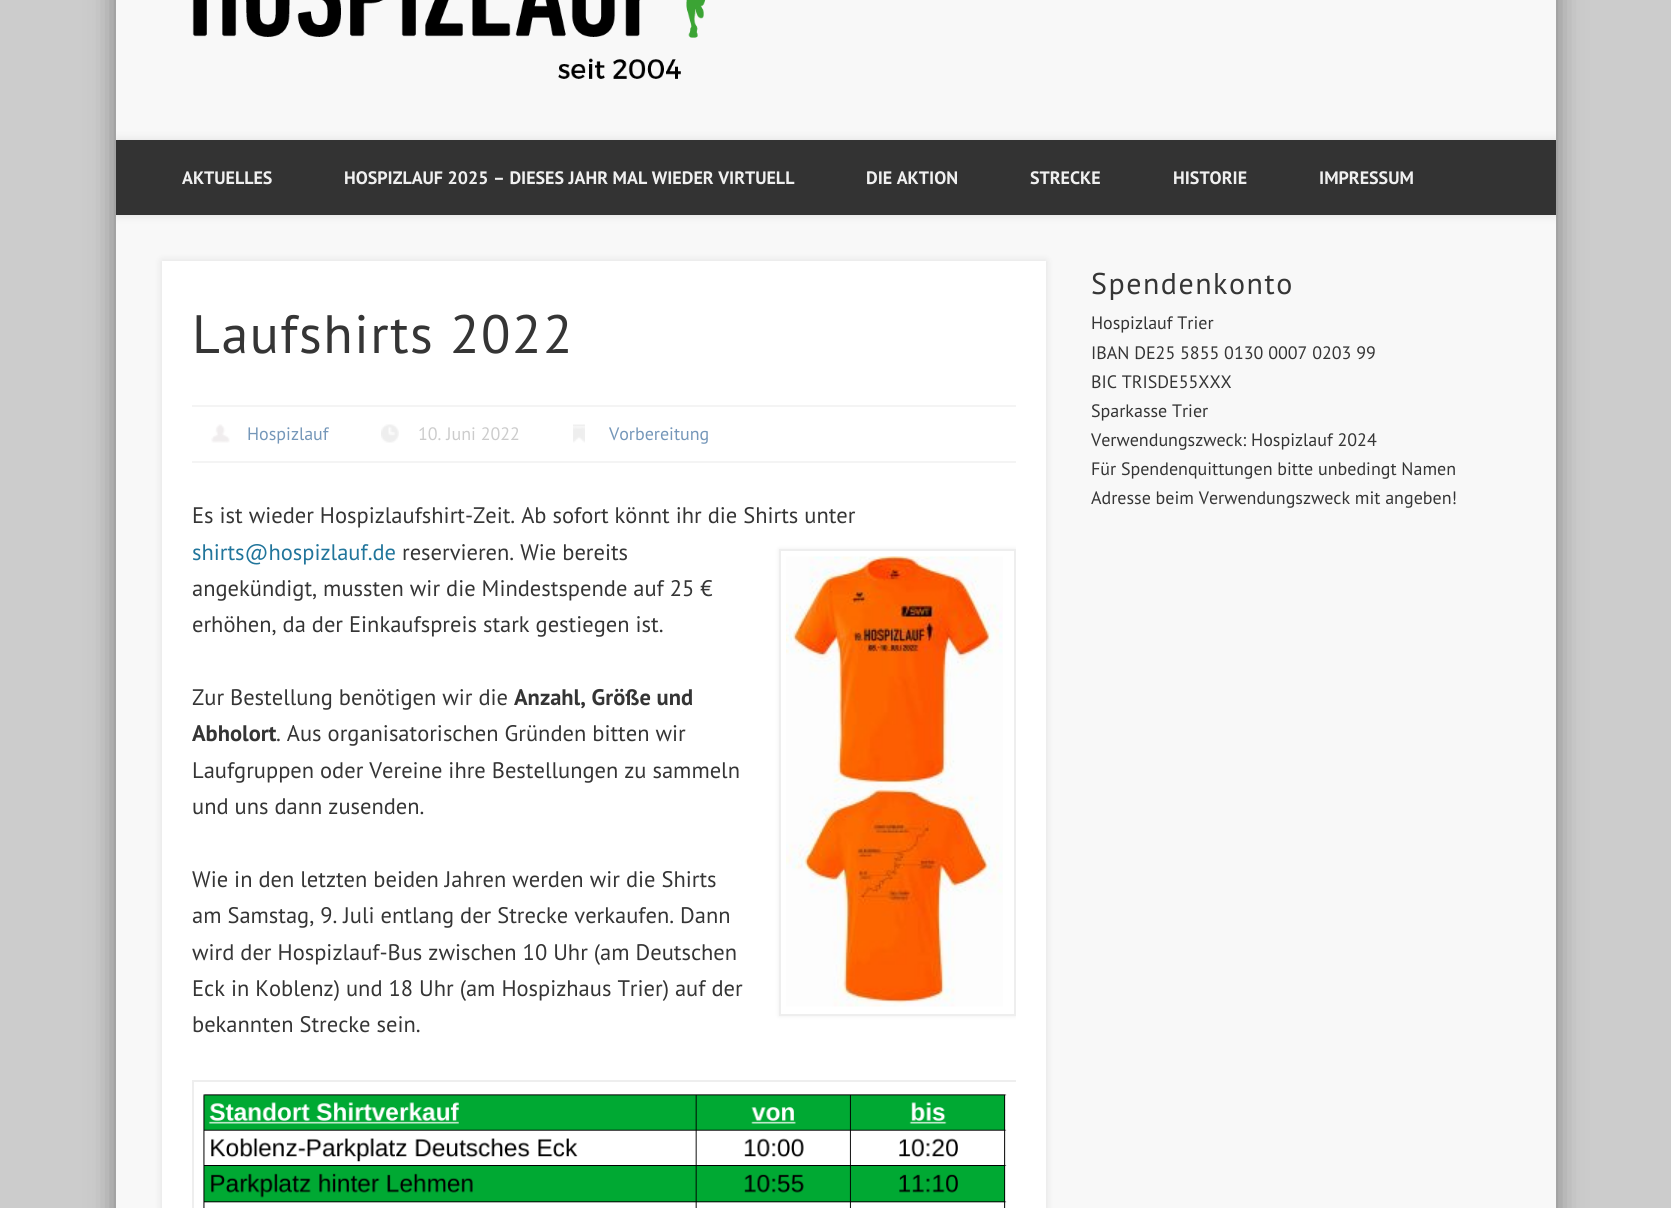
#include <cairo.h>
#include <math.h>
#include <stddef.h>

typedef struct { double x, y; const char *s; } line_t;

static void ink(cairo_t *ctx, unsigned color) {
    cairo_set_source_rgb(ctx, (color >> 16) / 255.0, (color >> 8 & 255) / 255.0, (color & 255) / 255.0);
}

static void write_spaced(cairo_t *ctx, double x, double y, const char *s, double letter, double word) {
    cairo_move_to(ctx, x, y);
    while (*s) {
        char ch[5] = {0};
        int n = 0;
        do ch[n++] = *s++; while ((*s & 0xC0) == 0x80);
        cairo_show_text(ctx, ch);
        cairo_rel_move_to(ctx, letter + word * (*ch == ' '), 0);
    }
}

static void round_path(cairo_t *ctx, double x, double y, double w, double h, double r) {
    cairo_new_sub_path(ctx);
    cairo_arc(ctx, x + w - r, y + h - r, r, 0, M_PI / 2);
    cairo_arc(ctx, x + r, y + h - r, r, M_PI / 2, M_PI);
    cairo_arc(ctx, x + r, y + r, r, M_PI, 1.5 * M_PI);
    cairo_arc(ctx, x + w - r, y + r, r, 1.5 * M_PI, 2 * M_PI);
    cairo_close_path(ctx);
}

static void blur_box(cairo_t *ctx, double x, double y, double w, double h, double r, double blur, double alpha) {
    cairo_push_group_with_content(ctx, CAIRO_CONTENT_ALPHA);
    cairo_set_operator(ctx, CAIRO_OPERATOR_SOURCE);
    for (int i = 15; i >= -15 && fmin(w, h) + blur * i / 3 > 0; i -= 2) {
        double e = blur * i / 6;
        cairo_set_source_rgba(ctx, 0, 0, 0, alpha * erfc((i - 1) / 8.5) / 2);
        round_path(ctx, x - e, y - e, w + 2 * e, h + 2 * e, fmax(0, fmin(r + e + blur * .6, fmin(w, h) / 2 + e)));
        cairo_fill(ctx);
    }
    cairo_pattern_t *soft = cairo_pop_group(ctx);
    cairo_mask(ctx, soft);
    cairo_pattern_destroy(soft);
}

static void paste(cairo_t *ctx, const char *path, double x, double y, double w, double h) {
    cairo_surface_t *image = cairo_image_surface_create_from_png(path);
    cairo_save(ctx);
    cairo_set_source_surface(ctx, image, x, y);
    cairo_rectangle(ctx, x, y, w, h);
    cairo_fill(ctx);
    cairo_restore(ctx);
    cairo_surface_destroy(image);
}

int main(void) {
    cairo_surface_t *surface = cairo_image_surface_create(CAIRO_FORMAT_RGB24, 1671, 1208);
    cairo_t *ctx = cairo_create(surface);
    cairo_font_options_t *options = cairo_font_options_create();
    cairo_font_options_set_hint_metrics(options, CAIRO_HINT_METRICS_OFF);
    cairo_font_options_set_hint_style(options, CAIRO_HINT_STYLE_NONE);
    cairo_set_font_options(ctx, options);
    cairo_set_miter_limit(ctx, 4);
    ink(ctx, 0xCCCCCC);
    cairo_paint(ctx);
    ink(ctx, 0x000000);
    blur_box(ctx, 116, -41, 1440, 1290, 0, 13.5, 0.4);
    ink(ctx, 0xF8F8F8);
    cairo_rectangle(ctx, 116, 0, 1440, 1208);
    cairo_fill(ctx);
    paste(ctx, "media/1.png", 192, 0, 514, 79);
    cairo_save(ctx);
    cairo_rectangle(ctx, 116, 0, 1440, 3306);
    cairo_clip(ctx);
    ink(ctx, 0x000000);
    blur_box(ctx, 116, 140, 1440, 75, 0, 5, 0.1);
    cairo_restore(ctx);
    ink(ctx, 0x333333);
    cairo_rectangle(ctx, 116, 140, 1440, 75);
    cairo_fill(ctx);
    cairo_select_font_face(ctx, "PT Sans", CAIRO_FONT_SLANT_NORMAL, CAIRO_FONT_WEIGHT_BOLD);
    cairo_set_font_size(ctx, 18);
    ink(ctx, 0xF0F0F0);
    {
        static const line_t items[] = {
            {182, 184, "AKTUELLES"},
            {344, 184, "HOSPIZLAUF 2025 – DIESES JAHR MAL WIEDER VIRTUELL"},
            {866, 184, "DIE AKTION"},
            {1030, 184, "STRECKE"},
            {1173, 184, "HISTORIE"},
            {1319, 184, "IMPRESSUM"},
        };
        for (size_t i = 0; i < sizeof items / sizeof *items; i++) {
            cairo_move_to(ctx, items[i].x, items[i].y);
            cairo_show_text(ctx, items[i].s);
        }
    }
    ink(ctx, 0x000000);
    blur_box(ctx, 162, 261, 884, 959, 0, 4, 0.1);
    ink(ctx, 0xFFFFFF);
    cairo_rectangle(ctx, 162, 261, 884, 947);
    cairo_fill(ctx);
    cairo_select_font_face(ctx, "PT Sans", CAIRO_FONT_SLANT_NORMAL, CAIRO_FONT_WEIGHT_NORMAL);
    cairo_set_font_size(ctx, 54);
    ink(ctx, 0x353535);
    write_spaced(ctx, 192, 353, "Laufshirts 2022", 1.5, 0);
    ink(ctx, 0xF4F4F4);
    cairo_rectangle(ctx, 192, 405, 824, 2);
    cairo_fill(ctx);
    cairo_rectangle(ctx, 192, 461, 824, 2);
    cairo_fill(ctx);
    paste(ctx, "media/2.png", 211, 424, 19, 19);
    cairo_set_font_size(ctx, 18);
    ink(ctx, 0x7597B9);
    cairo_move_to(ctx, 247, 440);
    cairo_show_text(ctx, "Hospizlauf");
    paste(ctx, "media/3.png", 381, 424, 18, 19);
    ink(ctx, 0xCCCCCC);
    cairo_move_to(ctx, 418, 440);
    cairo_show_text(ctx, "10. Juni 2022");
    paste(ctx, "media/4.png", 573, 424, 12, 19);
    ink(ctx, 0x7597B9);
    cairo_move_to(ctx, 609, 440);
    cairo_show_text(ctx, "Vorbereitung");
    cairo_set_font_size(ctx, 22.5);
    ink(ctx, 0x353535);
    cairo_move_to(ctx, 192, 523);
    cairo_show_text(ctx, "Es ist wieder Hospizlaufshirt-Zeit. Ab sofort könnt ihr die Shirts unter");
    ink(ctx, 0x21759B);
    cairo_move_to(ctx, 192, 560);
    cairo_show_text(ctx, "shirts@hospizlauf.de");
    ink(ctx, 0x353535);
    cairo_move_to(ctx, 402, 560);
    cairo_show_text(ctx, "reservieren. Wie bereits");
    cairo_save(ctx);
    cairo_rectangle(ctx, 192, 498, 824, 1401);
    cairo_clip(ctx);
    ink(ctx, 0xEEEEEE);
    blur_box(ctx, 779, 549, 237, 467, 0, 2, 1);
    cairo_restore(ctx);
    ink(ctx, 0xFFFFFF);
    cairo_rectangle(ctx, 780, 550, 235, 465);
    cairo_fill_preserve(ctx);
    ink(ctx, 0xEEEEEE);
    cairo_stroke(ctx);
    paste(ctx, "media/5.png", 786, 556, 217, 451);
    ink(ctx, 0x353535);
    {
        static const line_t items[] = {
            {192, 596, "angekündigt, mussten wir die Mindestspende auf 25 €"},
            {192, 632, "erhöhen, da der Einkaufspreis stark gestiegen ist."},
            {192, 705, "Zur Bestellung benötigen wir die"},
        };
        for (size_t i = 0; i < sizeof items / sizeof *items; i++) {
            cairo_move_to(ctx, items[i].x, items[i].y);
            cairo_show_text(ctx, items[i].s);
        }
    }
    cairo_select_font_face(ctx, "PT Sans", CAIRO_FONT_SLANT_NORMAL, CAIRO_FONT_WEIGHT_BOLD);
    cairo_move_to(ctx, 514, 705);
    cairo_show_text(ctx, "Anzahl, Größe und");
    cairo_move_to(ctx, 192, 741);
    cairo_show_text(ctx, "Abholort");
    cairo_select_font_face(ctx, "PT Sans", CAIRO_FONT_SLANT_NORMAL, CAIRO_FONT_WEIGHT_NORMAL);
    {
        static const line_t items[] = {
            {276, 741, ". Aus organisatorischen Gründen bitten wir"},
            {192, 778, "Laufgruppen oder Vereine ihre Bestellungen zu sammeln"},
            {192, 814, "und uns dann zusenden."},
            {192, 887, "Wie in den letzten beiden Jahren werden wir die Shirts"},
            {192, 923, "am Samstag, 9. Juli entlang der Strecke verkaufen. Dann"},
            {192, 960, "wird der Hospizlauf-Bus zwischen 10 Uhr (am Deutschen"},
            {192, 996, "Eck in Koblenz) und 18 Uhr (am Hospizhaus Trier) auf der"},
            {192, 1032, "bekannten Strecke sein."},
        };
        for (size_t i = 0; i < sizeof items / sizeof *items; i++) {
            cairo_move_to(ctx, items[i].x, items[i].y);
            cairo_show_text(ctx, items[i].s);
        }
    }
    cairo_save(ctx);
    cairo_rectangle(ctx, 192, 498, 824, 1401);
    cairo_clip(ctx);
    cairo_rectangle(ctx, 193, 1081, 825, 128);
    ink(ctx, 0xEEEEEE);
    cairo_stroke(ctx);
    cairo_restore(ctx);
    paste(ctx, "media/6.png", 203, 1094, 804, 114);
    cairo_set_font_size(ctx, 30);
    write_spaced(ctx, 1091, 294, "Spendenkonto", 1.5, 0);
    cairo_set_font_size(ctx, 18);
    {
        static const line_t items[] = {
            {1091, 329, "Hospizlauf Trier"},
            {1091, 359, "IBAN DE25 5855 0130 0007 0203 99"},
            {1091, 388, "BIC TRISDE55XXX"},
            {1091, 417, "Sparkasse Trier"},
            {1091, 446, "Verwendungszweck: Hospizlauf 2024"},
            {1091, 475, "Für Spendenquittungen bitte unbedingt Namen"},
            {1091, 504, "Adresse beim Verwendungszweck mit angeben!"},
        };
        for (size_t i = 0; i < sizeof items / sizeof *items; i++) {
            cairo_move_to(ctx, items[i].x, items[i].y);
            cairo_show_text(ctx, items[i].s);
        }
    }
    cairo_surface_write_to_png(surface, "image.png");
    cairo_font_options_destroy(options);
    cairo_destroy(ctx);
    cairo_surface_destroy(surface);
    return 0;
}
